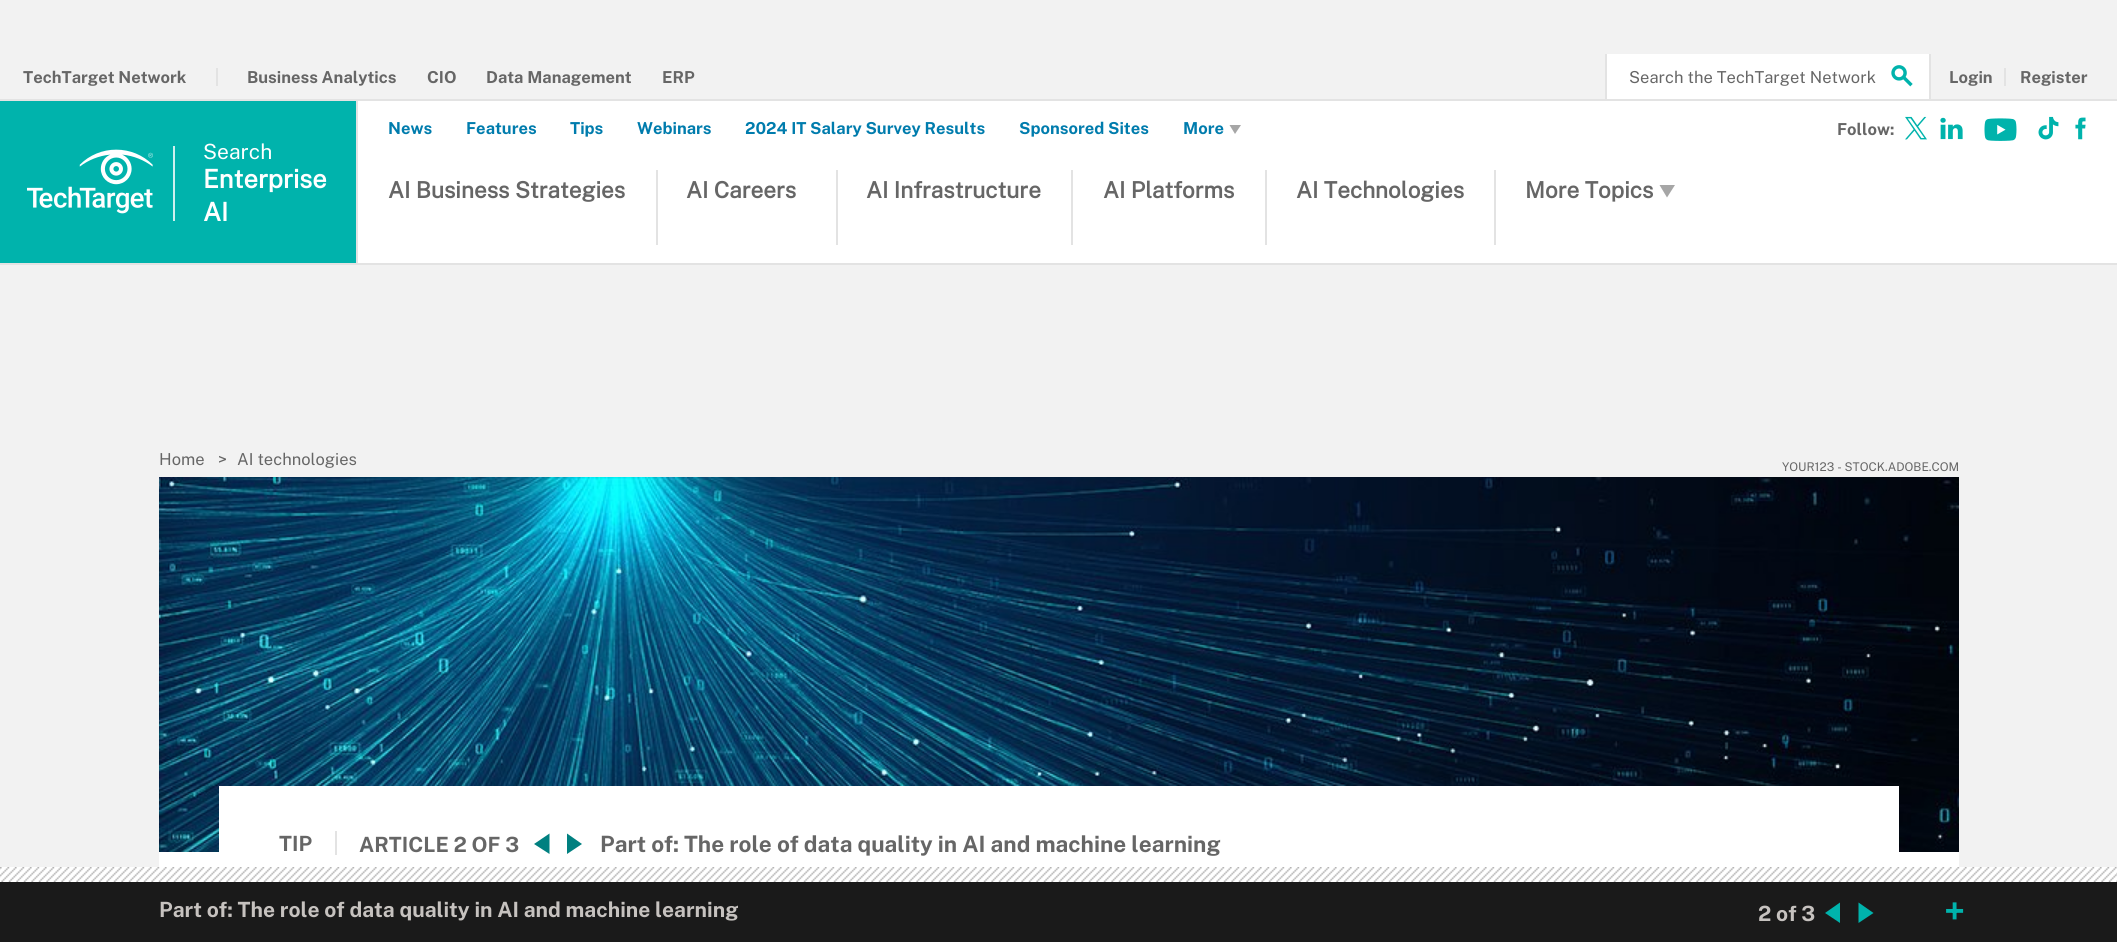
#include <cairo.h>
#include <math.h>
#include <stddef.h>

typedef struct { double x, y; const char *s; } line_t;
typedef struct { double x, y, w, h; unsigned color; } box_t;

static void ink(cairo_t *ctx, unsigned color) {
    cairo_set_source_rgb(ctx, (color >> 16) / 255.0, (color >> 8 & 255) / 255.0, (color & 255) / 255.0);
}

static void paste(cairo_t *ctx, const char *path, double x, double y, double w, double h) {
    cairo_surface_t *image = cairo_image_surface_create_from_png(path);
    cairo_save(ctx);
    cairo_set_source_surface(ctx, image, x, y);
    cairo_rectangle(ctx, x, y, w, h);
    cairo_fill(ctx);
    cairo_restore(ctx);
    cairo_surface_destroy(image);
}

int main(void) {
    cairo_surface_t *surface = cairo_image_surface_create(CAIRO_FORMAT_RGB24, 2117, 942);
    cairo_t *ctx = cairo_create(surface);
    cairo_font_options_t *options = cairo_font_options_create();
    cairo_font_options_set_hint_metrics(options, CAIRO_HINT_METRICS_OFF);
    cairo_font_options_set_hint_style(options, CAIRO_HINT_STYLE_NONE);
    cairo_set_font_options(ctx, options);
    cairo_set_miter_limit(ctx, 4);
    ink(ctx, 0xF2F2F2);
    cairo_paint(ctx);
    ink(ctx, 0xE3E3E3);
    cairo_rectangle(ctx, 0, 263, 2117, 2);
    cairo_fill(ctx);
    cairo_select_font_face(ctx, "Public Sans", CAIRO_FONT_SLANT_NORMAL, CAIRO_FONT_WEIGHT_BOLD);
    cairo_set_font_size(ctx, 16.5);
    ink(ctx, 0x666666);
    cairo_move_to(ctx, 23, 83);
    cairo_show_text(ctx, "TechTarget Network");
    ink(ctx, 0xE3E3E3);
    cairo_rectangle(ctx, 216, 68, 2, 18);
    cairo_fill(ctx);
    ink(ctx, 0x666666);
    {
        static const line_t items[] = {
            {247, 83, "Business Analytics"},
            {427, 83, "CIO"},
            {486, 83, "Data Management"},
            {662, 83, "ERP"},
            {1949, 83, "Login"},
            {2020, 83, "Register"},
        };
        for (size_t i = 0; i < sizeof items / sizeof *items; i++) {
            cairo_move_to(ctx, items[i].x, items[i].y);
            cairo_show_text(ctx, items[i].s);
        }
    }
    {
        static const box_t items[] = {
            {2004, 68, 2, 18, 0xE3E3E3},
            {358, 101, 1759, 162, 0xFFFFFF},
            {0, 99, 2117, 2, 0xE3E3E3},
            {356, 101, 2, 162, 0xE3E3E3},
            {0, 101, 356, 162, 0x00B3AC},
        };
        for (size_t i = 0; i < sizeof items / sizeof *items; i++) {
            ink(ctx, items[i].color);
            cairo_rectangle(ctx, items[i].x, items[i].y, items[i].w, items[i].h);
            cairo_fill(ctx);
        }
    }
    cairo_select_font_face(ctx, "Public Sans", CAIRO_FONT_SLANT_NORMAL, CAIRO_FONT_WEIGHT_NORMAL);
    cairo_set_font_size(ctx, 21);
    ink(ctx, 0xFFFFFF);
    cairo_move_to(ctx, 203, 159);
    cairo_show_text(ctx, "Search");
    cairo_select_font_face(ctx, "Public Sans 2", CAIRO_FONT_SLANT_NORMAL, CAIRO_FONT_WEIGHT_BOLD);
    cairo_set_font_size(ctx, 25.5);
    cairo_move_to(ctx, 203, 188);
    cairo_show_text(ctx, "Enterprise");
    cairo_move_to(ctx, 203, 221);
    cairo_show_text(ctx, "AI");
    cairo_select_font_face(ctx, "Public Sans", CAIRO_FONT_SLANT_NORMAL, CAIRO_FONT_WEIGHT_BOLD);
    cairo_set_font_size(ctx, 16.5);
    ink(ctx, 0x007CAD);
    {
        static const line_t items[] = {
            {388, 134, "News"},
            {466, 134, "Features"},
            {570, 134, "Tips"},
            {637, 134, "Webinars"},
            {745, 134, "2024 IT Salary Survey Results"},
            {1019, 134, "Sponsored Sites"},
            {1183, 134, "More"},
        };
        for (size_t i = 0; i < sizeof items / sizeof *items; i++) {
            cairo_move_to(ctx, items[i].x, items[i].y);
            cairo_show_text(ctx, items[i].s);
        }
    }
    ink(ctx, 0xA6A6A6);
    cairo_new_path(ctx);
    cairo_move_to(ctx, 1241, 125);
    cairo_line_to(ctx, 1235, 134);
    cairo_line_to(ctx, 1229.5, 125);
    cairo_close_path(ctx);
    cairo_fill(ctx);
    cairo_select_font_face(ctx, "Public Sans 2", CAIRO_FONT_SLANT_NORMAL, CAIRO_FONT_WEIGHT_BOLD);
    cairo_set_font_size(ctx, 22.5);
    ink(ctx, 0x666666);
    cairo_move_to(ctx, 388, 198);
    cairo_show_text(ctx, "AI Business Strategies");
    ink(ctx, 0xE3E3E3);
    cairo_rectangle(ctx, 656, 170, 2, 75);
    cairo_fill(ctx);
    ink(ctx, 0x666666);
    cairo_move_to(ctx, 686, 198);
    cairo_show_text(ctx, "AI Careers");
    ink(ctx, 0xE3E3E3);
    cairo_rectangle(ctx, 836, 170, 2, 75);
    cairo_fill(ctx);
    ink(ctx, 0x666666);
    cairo_move_to(ctx, 866, 198);
    cairo_show_text(ctx, "AI Infrastructure");
    ink(ctx, 0xE3E3E3);
    cairo_rectangle(ctx, 1071, 170, 2, 75);
    cairo_fill(ctx);
    ink(ctx, 0x666666);
    cairo_move_to(ctx, 1103, 198);
    cairo_show_text(ctx, "AI Platforms");
    ink(ctx, 0xE3E3E3);
    cairo_rectangle(ctx, 1265, 170, 2, 75);
    cairo_fill(ctx);
    ink(ctx, 0x666666);
    cairo_move_to(ctx, 1296, 198);
    cairo_show_text(ctx, "AI Technologies");
    ink(ctx, 0xE3E3E3);
    cairo_rectangle(ctx, 1494, 170, 2, 75);
    cairo_fill(ctx);
    ink(ctx, 0x666666);
    cairo_move_to(ctx, 1525, 198);
    cairo_show_text(ctx, "More Topics");
    ink(ctx, 0xA6A6A6);
    cairo_new_path(ctx);
    cairo_move_to(ctx, 1675, 185);
    cairo_line_to(ctx, 1667, 197.5);
    cairo_line_to(ctx, 1659.5, 185);
    cairo_close_path(ctx);
    cairo_fill(ctx);
    cairo_select_font_face(ctx, "Public Sans", CAIRO_FONT_SLANT_NORMAL, CAIRO_FONT_WEIGHT_BOLD);
    cairo_set_font_size(ctx, 16.5);
    ink(ctx, 0x666666);
    cairo_move_to(ctx, 1837, 135);
    cairo_show_text(ctx, "Follow:");
    paste(ctx, "media/1.png", 1905, 116, 22, 24);
    paste(ctx, "media/2.png", 1940, 117, 23, 23);
    paste(ctx, "media/3.png", 1984, 118, 33, 23);
    paste(ctx, "media/4.png", 2038, 116, 21, 24);
    paste(ctx, "media/5.png", 2075, 117, 11, 23);
    {
        static const box_t items[] = {
            {1929, 54, 2, 45, 0xE3E3E3},
            {1605, 54, 2, 45, 0xE3E3E3},
            {1607, 54, 322, 45, 0xFFFFFF},
        };
        for (size_t i = 0; i < sizeof items / sizeof *items; i++) {
            ink(ctx, items[i].color);
            cairo_rectangle(ctx, items[i].x, items[i].y, items[i].w, items[i].h);
            cairo_fill(ctx);
        }
    }
    cairo_select_font_face(ctx, "Public Sans", CAIRO_FONT_SLANT_NORMAL, CAIRO_FONT_WEIGHT_NORMAL);
    ink(ctx, 0x666666);
    cairo_move_to(ctx, 1629, 83);
    cairo_show_text(ctx, "Search the TechTarget Network");
    paste(ctx, "media/6.png", 1891, 65, 22, 22);
    paste(ctx, "media/7.png", 27, 149, 126, 65);
    ink(ctx, 0xCEF0EE);
    cairo_rectangle(ctx, 173, 146, 2, 75);
    cairo_fill(ctx);
    ink(ctx, 0x666666);
    {
        static const line_t items[] = {
            {159, 465, "Home"},
            {218, 465, ">"},
            {237, 465, "AI technologies"},
        };
        for (size_t i = 0; i < sizeof items / sizeof *items; i++) {
            cairo_move_to(ctx, items[i].x, items[i].y);
            cairo_show_text(ctx, items[i].s);
        }
    }
    ink(ctx, 0xFFFFFF);
    cairo_rectangle(ctx, 159, 852, 1800, 15);
    cairo_fill(ctx);
    cairo_set_font_size(ctx, 12);
    ink(ctx, 0x666666);
    cairo_move_to(ctx, 1782, 471);
    cairo_show_text(ctx, "YOUR123 - STOCK.ADOBE.COM");
    paste(ctx, "media/8.png", 159, 477, 1800, 375);
    ink(ctx, 0xFFFFFF);
    cairo_rectangle(ctx, 219, 786, 1680, 66);
    cairo_fill(ctx);
    ink(ctx, 0xE3E3E3);
    cairo_rectangle(ctx, 335, 831, 2, 24);
    cairo_fill(ctx);
    cairo_select_font_face(ctx, "Public Sans", CAIRO_FONT_SLANT_NORMAL, CAIRO_FONT_WEIGHT_BOLD);
    cairo_set_font_size(ctx, 21);
    ink(ctx, 0x666666);
    cairo_move_to(ctx, 279, 851);
    cairo_show_text(ctx, "TIP");
    cairo_move_to(ctx, 359, 852);
    cairo_show_text(ctx, "ARTICLE 2 OF 3");
    ink(ctx, 0x008080);
    cairo_new_path(ctx);
    cairo_move_to(ctx, 549.5, 833.5);
    cairo_line_to(ctx, 534, 844);
    cairo_line_to(ctx, 549.5, 854);
    cairo_close_path(ctx);
    cairo_move_to(ctx, 567, 833.5);
    cairo_line_to(ctx, 582, 844);
    cairo_line_to(ctx, 567, 854);
    cairo_close_path(ctx);
    cairo_fill(ctx);
    cairo_set_font_size(ctx, 22.5);
    ink(ctx, 0x666666);
    cairo_move_to(ctx, 600, 852);
    cairo_show_text(ctx, "Part of:");
    cairo_move_to(ctx, 684, 852);
    cairo_show_text(ctx, "The role of data quality in AI and machine learning");
    ink(ctx, 0x1A1A1A);
    cairo_rectangle(ctx, 0, 882, 2117, 60);
    cairo_fill(ctx);
    paste(ctx, "media/9.png", 0, 867, 2117, 15);
    cairo_set_font_size(ctx, 21);
    ink(ctx, 0xC6C2BF);
    cairo_move_to(ctx, 159, 917);
    cairo_show_text(ctx, "Part of: The role of data quality in AI and machine learning");
    cairo_move_to(ctx, 1758, 921);
    cairo_show_text(ctx, "2 of 3");
    ink(ctx, 0x00B3AC);
    cairo_new_path(ctx);
    cairo_move_to(ctx, 1840, 902.5);
    cairo_line_to(ctx, 1825, 913);
    cairo_line_to(ctx, 1840, 923);
    cairo_close_path(ctx);
    cairo_move_to(ctx, 1858.5, 902.5);
    cairo_line_to(ctx, 1873.5, 913);
    cairo_line_to(ctx, 1858.5, 923);
    cairo_close_path(ctx);
    cairo_fill(ctx);
    cairo_set_font_size(ctx, 36);
    cairo_move_to(ctx, 1944, 924);
    cairo_show_text(ctx, "+");
    cairo_surface_write_to_png(surface, "image.png");
    cairo_font_options_destroy(options);
    cairo_destroy(ctx);
    cairo_surface_destroy(surface);
    return 0;
}
